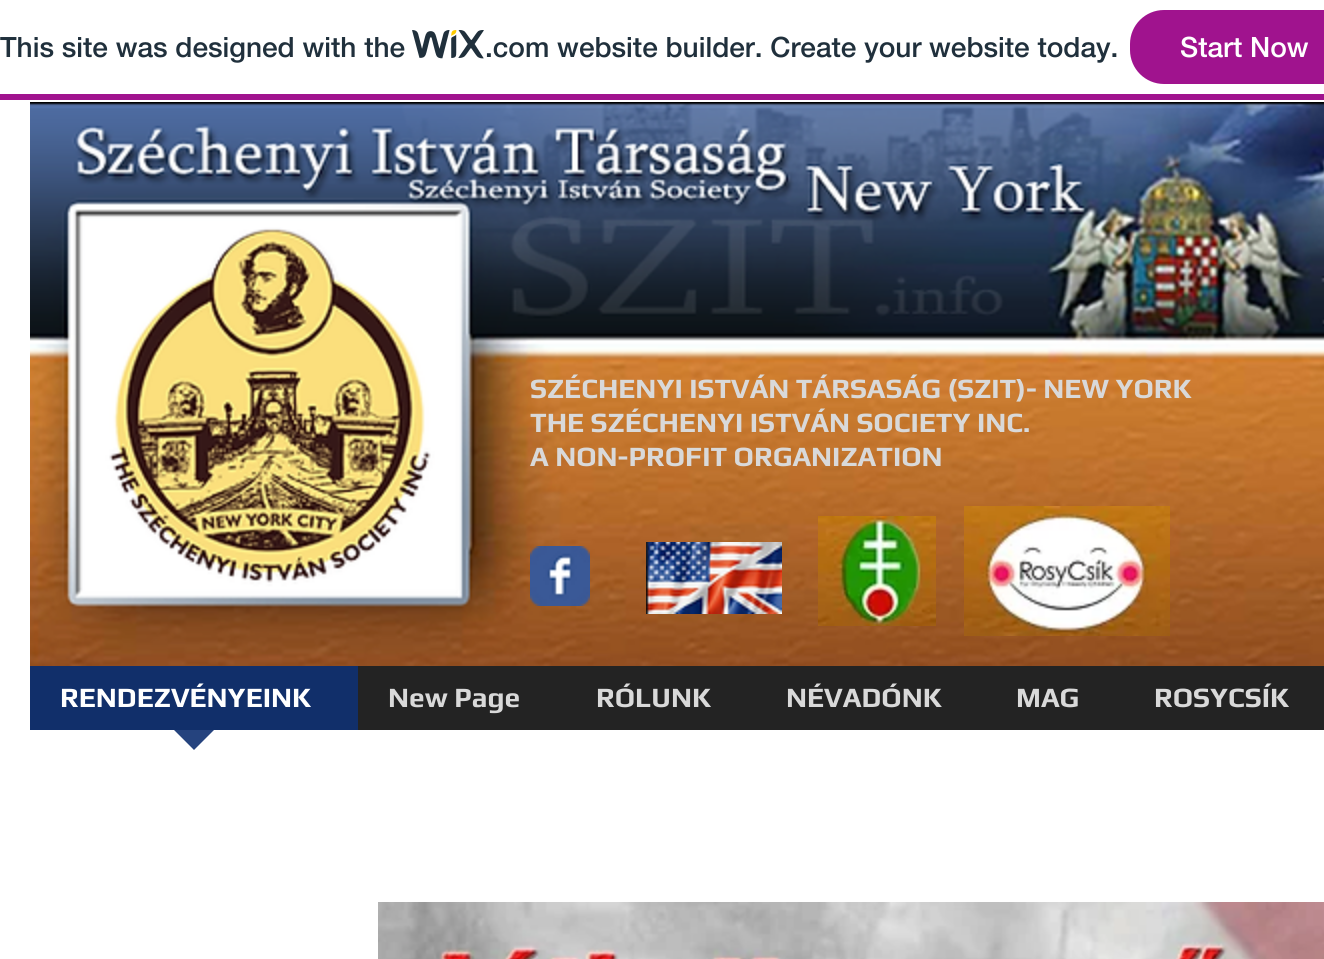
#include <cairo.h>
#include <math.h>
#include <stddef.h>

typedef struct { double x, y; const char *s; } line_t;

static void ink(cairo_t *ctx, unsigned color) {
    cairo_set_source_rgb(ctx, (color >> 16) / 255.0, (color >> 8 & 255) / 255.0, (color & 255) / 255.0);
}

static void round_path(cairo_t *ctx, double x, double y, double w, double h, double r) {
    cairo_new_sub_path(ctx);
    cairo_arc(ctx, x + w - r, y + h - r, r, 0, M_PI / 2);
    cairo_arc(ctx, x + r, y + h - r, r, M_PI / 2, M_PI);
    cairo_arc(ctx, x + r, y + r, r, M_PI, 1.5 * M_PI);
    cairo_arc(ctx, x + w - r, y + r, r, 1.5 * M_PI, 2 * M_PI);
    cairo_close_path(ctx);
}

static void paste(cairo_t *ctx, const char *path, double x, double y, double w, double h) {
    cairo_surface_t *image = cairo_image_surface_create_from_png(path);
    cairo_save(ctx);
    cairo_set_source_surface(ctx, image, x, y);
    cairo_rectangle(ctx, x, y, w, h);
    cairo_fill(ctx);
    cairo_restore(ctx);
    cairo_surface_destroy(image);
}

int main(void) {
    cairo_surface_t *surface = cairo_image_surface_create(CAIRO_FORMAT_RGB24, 1324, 959);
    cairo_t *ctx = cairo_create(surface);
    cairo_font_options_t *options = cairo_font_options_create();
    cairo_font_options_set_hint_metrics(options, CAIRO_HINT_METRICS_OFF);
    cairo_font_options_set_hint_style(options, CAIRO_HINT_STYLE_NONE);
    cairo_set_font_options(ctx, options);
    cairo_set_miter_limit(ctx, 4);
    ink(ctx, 0xFFFFFF);
    cairo_paint(ctx);
    ink(ctx, 0xA0138E);
    cairo_rectangle(ctx, 0, 94, 1324, 6);
    cairo_fill(ctx);
    cairo_select_font_face(ctx, "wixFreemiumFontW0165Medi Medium", CAIRO_FONT_SLANT_NORMAL, CAIRO_FONT_WEIGHT_NORMAL);
    cairo_set_font_size(ctx, 28);
    ink(ctx, 0x20303C);
    cairo_move_to(ctx, 0, 57);
    cairo_show_text(ctx, "This site was designed with the");
    paste(ctx, "media/1.png", 412, 30, 72, 29);
    cairo_move_to(ctx, 485, 57);
    cairo_show_text(ctx, ".com website builder. Create your website today.");
    ink(ctx, 0xA0138E);
    round_path(ctx, 1131, 11, 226, 72, 33);
    cairo_fill_preserve(ctx);
    cairo_stroke(ctx);
    ink(ctx, 0xFFFFFF);
    cairo_move_to(ctx, 1180, 57);
    cairo_show_text(ctx, "Start Now");
    paste(ctx, "media/2.png", 30, 102, 1294, 564);
    cairo_select_font_face(ctx, "Play", CAIRO_FONT_SLANT_NORMAL, CAIRO_FONT_WEIGHT_BOLD);
    ink(ctx, 0xD9D9D9);
    {
        static const line_t items[] = {
            {530, 398, "SZÉCHENYI ISTVÁN TÁRSASÁG (SZIT)- NEW YORK"},
            {530, 432, "THE SZÉCHENYI ISTVÁN SOCIETY INC."},
            {530, 466, "A NON-PROFIT ORGANIZATION"},
        };
        for (size_t i = 0; i < sizeof items / sizeof *items; i++) {
            cairo_move_to(ctx, items[i].x, items[i].y);
            cairo_show_text(ctx, items[i].s);
        }
    }
    paste(ctx, "media/3.png", 530, 546, 60, 60);
    paste(ctx, "media/4.png", 646, 542, 136, 72);
    paste(ctx, "media/5.png", 818, 516, 118, 110);
    paste(ctx, "media/6.png", 964, 506, 206, 130);
    ink(ctx, 0x232323);
    cairo_rectangle(ctx, 358, 666, 966, 64);
    cairo_fill(ctx);
    ink(ctx, 0x112F6A);
    cairo_rectangle(ctx, 30, 666, 328, 64);
    cairo_fill(ctx);
    ink(ctx, 0xFFFFFF);
    cairo_move_to(ctx, 60, 707);
    cairo_show_text(ctx, "RENDEZVÉNYEINK");
    ink(ctx, 0x25437E);
    cairo_new_path(ctx);
    cairo_move_to(ctx, 174, 730);
    cairo_line_to(ctx, 214, 730);
    cairo_line_to(ctx, 194, 750);
    cairo_close_path(ctx);
    cairo_fill(ctx);
    ink(ctx, 0xD9D9D9);
    {
        static const line_t items[] = {
            {388, 707, "New Page"},
            {596, 707, "RÓLUNK"},
            {786, 707, "NÉVADÓNK"},
            {1016, 707, "MAG"},
            {1154, 707, "ROSYCSÍK"},
        };
        for (size_t i = 0; i < sizeof items / sizeof *items; i++) {
            cairo_move_to(ctx, items[i].x, items[i].y);
            cairo_show_text(ctx, items[i].s);
        }
    }
    paste(ctx, "media/7.png", 378, 902, 946, 57);
    cairo_surface_write_to_png(surface, "image.png");
    cairo_font_options_destroy(options);
    cairo_destroy(ctx);
    cairo_surface_destroy(surface);
    return 0;
}
